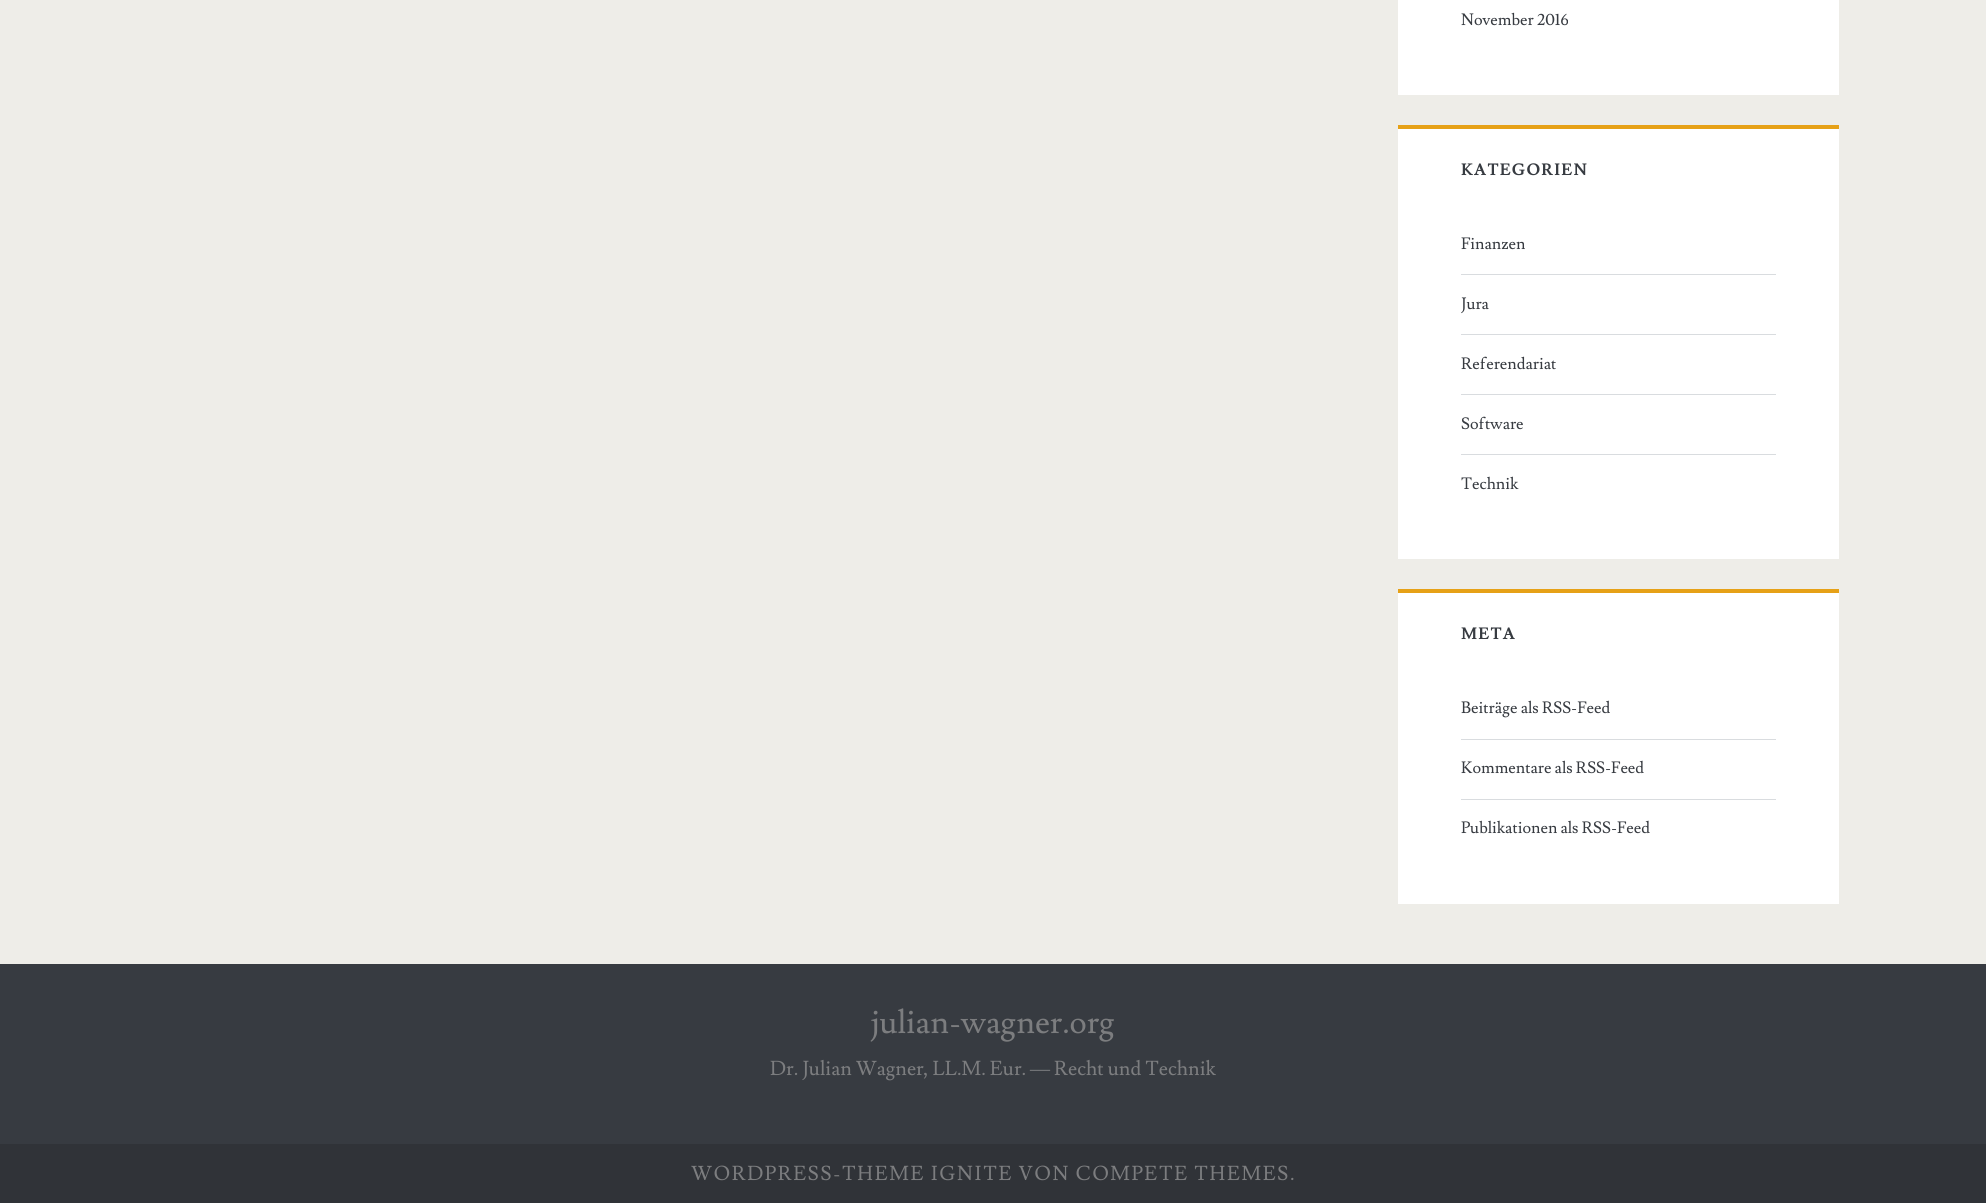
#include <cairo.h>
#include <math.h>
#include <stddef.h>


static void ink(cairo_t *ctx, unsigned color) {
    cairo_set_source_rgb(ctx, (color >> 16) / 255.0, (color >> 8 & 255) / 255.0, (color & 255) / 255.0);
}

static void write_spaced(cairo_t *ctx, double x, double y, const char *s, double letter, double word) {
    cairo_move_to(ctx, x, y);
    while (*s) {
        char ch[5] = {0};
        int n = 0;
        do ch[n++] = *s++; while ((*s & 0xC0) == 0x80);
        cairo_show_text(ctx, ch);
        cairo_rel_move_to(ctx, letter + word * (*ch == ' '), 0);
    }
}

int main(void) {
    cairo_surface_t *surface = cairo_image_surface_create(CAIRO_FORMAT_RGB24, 1986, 1203);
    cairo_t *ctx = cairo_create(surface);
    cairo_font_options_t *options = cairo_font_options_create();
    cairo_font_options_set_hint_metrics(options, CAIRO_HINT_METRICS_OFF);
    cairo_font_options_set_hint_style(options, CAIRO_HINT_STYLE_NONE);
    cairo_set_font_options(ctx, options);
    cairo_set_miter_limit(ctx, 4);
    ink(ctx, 0xEEEDE8);
    cairo_paint(ctx);
    ink(ctx, 0xFFFFFF);
    cairo_rectangle(ctx, 1398, 0, 441, 95);
    cairo_fill(ctx);
    cairo_select_font_face(ctx, "Lusitana", CAIRO_FONT_SLANT_NORMAL, CAIRO_FONT_WEIGHT_NORMAL);
    cairo_set_font_size(ctx, 16.25);
    ink(ctx, 0x373B41);
    cairo_move_to(ctx, 1461, 25);
    cairo_show_text(ctx, "November 2016");
    ink(ctx, 0xFFFFFF);
    cairo_rectangle(ctx, 1398, 129, 441, 430);
    cairo_fill(ctx);
    ink(ctx, 0xE6A117);
    cairo_rectangle(ctx, 1398, 125, 441, 4);
    cairo_fill(ctx);
    cairo_select_font_face(ctx, "Lusitana", CAIRO_FONT_SLANT_NORMAL, CAIRO_FONT_WEIGHT_BOLD);
    ink(ctx, 0x373B41);
    write_spaced(ctx, 1461, 175, "KATEGORIEN", 1.25, 0);
    ink(ctx, 0xD9DCDF);
    cairo_rectangle(ctx, 1461, 274, 315, 1);
    cairo_fill(ctx);
    cairo_select_font_face(ctx, "Lusitana", CAIRO_FONT_SLANT_NORMAL, CAIRO_FONT_WEIGHT_NORMAL);
    ink(ctx, 0x373B41);
    cairo_move_to(ctx, 1461, 249);
    cairo_show_text(ctx, "Finanzen");
    ink(ctx, 0xD9DCDF);
    cairo_rectangle(ctx, 1461, 334, 315, 1);
    cairo_fill(ctx);
    ink(ctx, 0x373B41);
    cairo_move_to(ctx, 1461, 309);
    cairo_show_text(ctx, "Jura");
    ink(ctx, 0xD9DCDF);
    cairo_rectangle(ctx, 1461, 394, 315, 1);
    cairo_fill(ctx);
    ink(ctx, 0x373B41);
    cairo_move_to(ctx, 1461, 369);
    cairo_show_text(ctx, "Referendariat");
    ink(ctx, 0xD9DCDF);
    cairo_rectangle(ctx, 1461, 454, 315, 1);
    cairo_fill(ctx);
    ink(ctx, 0x373B41);
    cairo_move_to(ctx, 1461, 429);
    cairo_show_text(ctx, "Software");
    cairo_move_to(ctx, 1461, 489);
    cairo_show_text(ctx, "Technik");
    ink(ctx, 0xFFFFFF);
    cairo_rectangle(ctx, 1398, 593, 441, 311);
    cairo_fill(ctx);
    ink(ctx, 0xE6A117);
    cairo_rectangle(ctx, 1398, 589, 441, 4);
    cairo_fill(ctx);
    cairo_select_font_face(ctx, "Lusitana", CAIRO_FONT_SLANT_NORMAL, CAIRO_FONT_WEIGHT_BOLD);
    ink(ctx, 0x373B41);
    write_spaced(ctx, 1461, 639, "META", 1.25, 0);
    ink(ctx, 0xD9DCDF);
    cairo_rectangle(ctx, 1461, 739, 315, 1);
    cairo_fill(ctx);
    cairo_select_font_face(ctx, "Lusitana", CAIRO_FONT_SLANT_NORMAL, CAIRO_FONT_WEIGHT_NORMAL);
    ink(ctx, 0x373B41);
    cairo_move_to(ctx, 1461, 713);
    cairo_show_text(ctx, "Beiträge als RSS-Feed");
    ink(ctx, 0xD9DCDF);
    cairo_rectangle(ctx, 1461, 799, 315, 1);
    cairo_fill(ctx);
    ink(ctx, 0x373B41);
    cairo_move_to(ctx, 1461, 773);
    cairo_show_text(ctx, "Kommentare als RSS-Feed");
    cairo_move_to(ctx, 1461, 833);
    cairo_show_text(ctx, "Publikationen als RSS-Feed");
    cairo_rectangle(ctx, 0, 964, 1986, 180);
    cairo_fill(ctx);
    cairo_set_font_size(ctx, 32.5);
    ink(ctx, 0x7C7D7F);
    cairo_move_to(ctx, 871, 1033);
    cairo_show_text(ctx, "julian-wagner.org");
    cairo_set_font_size(ctx, 20);
    cairo_move_to(ctx, 770, 1075);
    cairo_show_text(ctx, "Dr. Julian Wagner, LL.M. Eur.");
    cairo_select_font_face(ctx, "Liberation Serif", CAIRO_FONT_SLANT_NORMAL, CAIRO_FONT_WEIGHT_NORMAL);
    cairo_move_to(ctx, 1030, 1075);
    cairo_show_text(ctx, "—");
    cairo_select_font_face(ctx, "Lusitana", CAIRO_FONT_SLANT_NORMAL, CAIRO_FONT_WEIGHT_NORMAL);
    cairo_move_to(ctx, 1054, 1075);
    cairo_show_text(ctx, "Recht und Technik");
    ink(ctx, 0x303338);
    cairo_rectangle(ctx, 0, 1144, 1986, 59);
    cairo_fill(ctx);
    ink(ctx, 0x7C7D7F);
    write_spaced(ctx, 691, 1180, "WORDPRESS-THEME IGNITE VON COMPETE THEMES.", 1.6, 0);
    cairo_surface_write_to_png(surface, "image.png");
    cairo_font_options_destroy(options);
    cairo_destroy(ctx);
    cairo_surface_destroy(surface);
    return 0;
}
